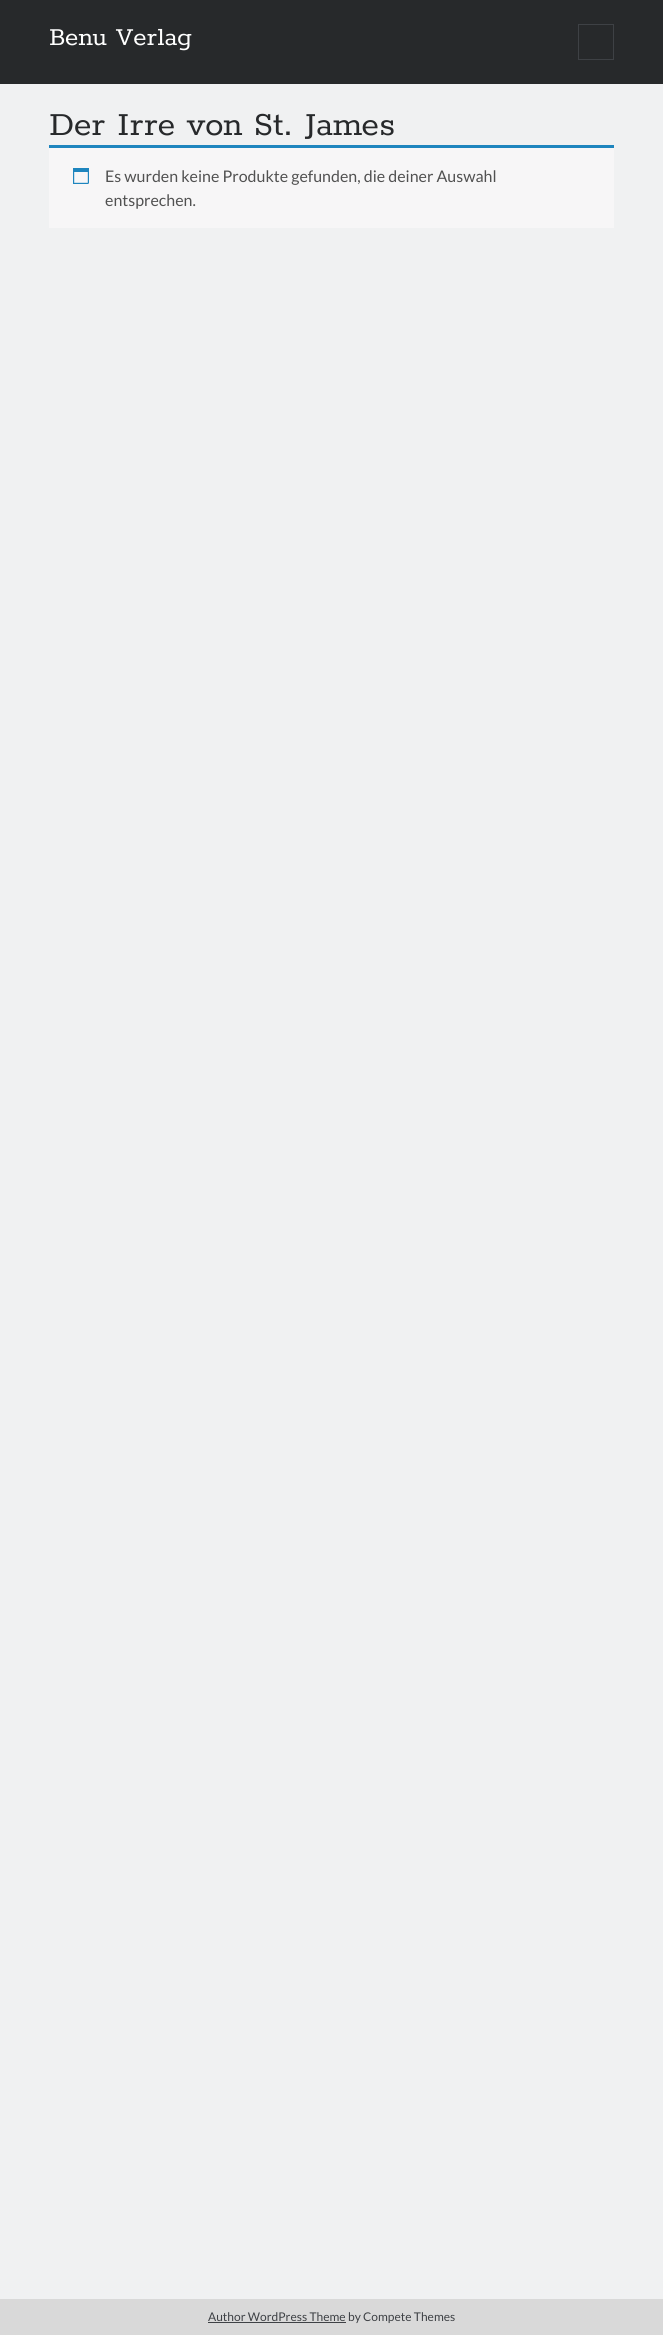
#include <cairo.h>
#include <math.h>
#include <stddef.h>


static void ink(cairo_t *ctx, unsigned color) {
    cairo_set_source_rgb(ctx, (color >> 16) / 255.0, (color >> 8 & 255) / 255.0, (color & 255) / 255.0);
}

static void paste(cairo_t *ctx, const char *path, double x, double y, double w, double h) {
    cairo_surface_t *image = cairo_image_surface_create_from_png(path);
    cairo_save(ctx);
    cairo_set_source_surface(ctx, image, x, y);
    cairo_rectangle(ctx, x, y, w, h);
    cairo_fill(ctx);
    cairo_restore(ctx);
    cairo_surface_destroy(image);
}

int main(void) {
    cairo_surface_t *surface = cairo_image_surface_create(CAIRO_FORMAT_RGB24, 663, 2335);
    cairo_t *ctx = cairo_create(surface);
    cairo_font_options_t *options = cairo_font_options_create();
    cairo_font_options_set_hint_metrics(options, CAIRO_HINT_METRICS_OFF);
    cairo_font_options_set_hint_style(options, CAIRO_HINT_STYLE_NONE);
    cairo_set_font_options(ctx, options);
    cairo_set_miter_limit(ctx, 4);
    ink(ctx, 0x27292B);
    cairo_paint(ctx);
    cairo_select_font_face(ctx, "Rokkitt", CAIRO_FONT_SLANT_NORMAL, CAIRO_FONT_WEIGHT_NORMAL);
    cairo_set_font_size(ctx, 28);
    ink(ctx, 0xFFFFFF);
    cairo_move_to(ctx, 49, 45);
    cairo_show_text(ctx, "Benu Verlag");
    cairo_rectangle(ctx, 578.5, 24.5, 35, 35);
    ink(ctx, 0x3E4145);
    cairo_set_line_width(ctx, 1);
    cairo_stroke(ctx);
    ink(ctx, 0xF0F1F2);
    cairo_rectangle(ctx, 0, 84, 663, 2215);
    cairo_fill(ctx);
    cairo_set_font_size(ctx, 37);
    ink(ctx, 0x27292B);
    cairo_move_to(ctx, 49, 135);
    cairo_show_text(ctx, "Der Irre von St. James");
    ink(ctx, 0xF7F6F7);
    cairo_rectangle(ctx, 49, 148, 565, 80);
    cairo_fill(ctx);
    ink(ctx, 0x1E85BE);
    cairo_rectangle(ctx, 49, 145, 565, 3);
    cairo_fill(ctx);
    paste(ctx, "media/1.png", 73, 168, 16, 16);
    cairo_select_font_face(ctx, "Lato", CAIRO_FONT_SLANT_NORMAL, CAIRO_FONT_WEIGHT_NORMAL);
    cairo_set_font_size(ctx, 16);
    ink(ctx, 0x515151);
    cairo_move_to(ctx, 105, 182);
    cairo_show_text(ctx, "Es wurden keine Produkte gefunden, die deiner Auswahl");
    cairo_move_to(ctx, 105, 206);
    cairo_show_text(ctx, "entsprechen.");
    ink(ctx, 0xD9D9D9);
    cairo_rectangle(ctx, 0, 2299, 663, 36);
    cairo_fill(ctx);
    ink(ctx, 0x3E4145);
    cairo_rectangle(ctx, 208, 2322, 138, 1);
    cairo_fill(ctx);
    cairo_set_font_size(ctx, 12);
    cairo_move_to(ctx, 208, 2321);
    cairo_show_text(ctx, "Author WordPress Theme by Compete Themes");
    cairo_surface_write_to_png(surface, "image.png");
    cairo_font_options_destroy(options);
    cairo_destroy(ctx);
    cairo_surface_destroy(surface);
    return 0;
}
